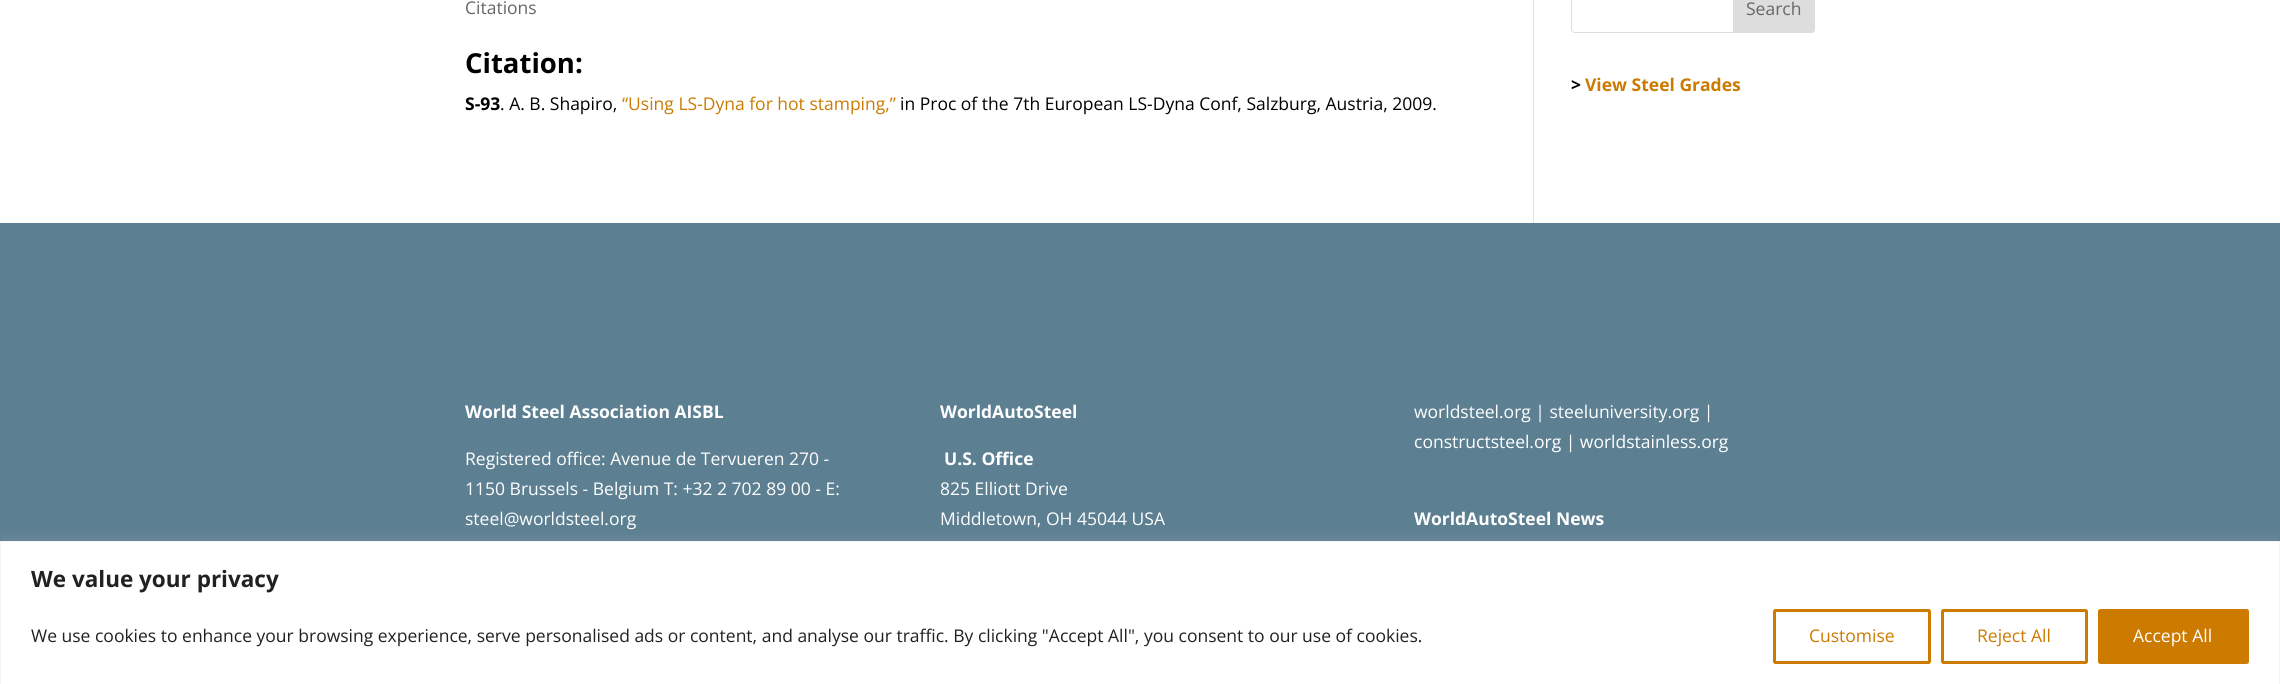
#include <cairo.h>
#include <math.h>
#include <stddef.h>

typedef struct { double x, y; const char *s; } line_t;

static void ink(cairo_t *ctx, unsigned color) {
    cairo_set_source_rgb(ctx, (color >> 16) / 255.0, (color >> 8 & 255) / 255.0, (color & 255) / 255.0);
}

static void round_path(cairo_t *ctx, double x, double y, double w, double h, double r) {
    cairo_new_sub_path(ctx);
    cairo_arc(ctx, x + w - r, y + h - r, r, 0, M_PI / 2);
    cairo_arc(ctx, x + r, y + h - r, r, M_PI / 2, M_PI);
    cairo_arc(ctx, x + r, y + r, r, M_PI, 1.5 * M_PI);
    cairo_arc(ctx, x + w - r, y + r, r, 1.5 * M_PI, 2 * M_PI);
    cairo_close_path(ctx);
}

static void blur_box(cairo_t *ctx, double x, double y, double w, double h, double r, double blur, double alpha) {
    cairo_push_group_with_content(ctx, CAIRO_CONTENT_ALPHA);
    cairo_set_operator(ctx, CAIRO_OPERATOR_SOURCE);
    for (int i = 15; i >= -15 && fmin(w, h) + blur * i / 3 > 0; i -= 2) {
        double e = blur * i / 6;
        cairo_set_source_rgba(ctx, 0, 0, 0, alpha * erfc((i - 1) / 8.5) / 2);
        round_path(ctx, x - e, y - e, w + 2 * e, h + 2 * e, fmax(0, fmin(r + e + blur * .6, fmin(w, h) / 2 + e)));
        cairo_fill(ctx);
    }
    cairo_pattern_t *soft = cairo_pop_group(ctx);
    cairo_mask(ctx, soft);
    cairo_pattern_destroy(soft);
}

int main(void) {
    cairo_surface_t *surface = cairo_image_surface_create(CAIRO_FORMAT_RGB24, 2280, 684);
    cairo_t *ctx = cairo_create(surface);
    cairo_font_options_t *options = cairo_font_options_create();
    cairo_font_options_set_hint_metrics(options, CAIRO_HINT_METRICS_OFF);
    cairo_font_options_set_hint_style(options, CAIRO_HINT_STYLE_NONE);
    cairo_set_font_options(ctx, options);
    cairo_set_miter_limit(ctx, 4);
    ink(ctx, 0xFFFFFF);
    cairo_paint(ctx);
    ink(ctx, 0xE2E2E2);
    cairo_rectangle(ctx, 1533, 0, 1, 223);
    cairo_fill(ctx);
    cairo_select_font_face(ctx, "Open Sans", CAIRO_FONT_SLANT_NORMAL, CAIRO_FONT_WEIGHT_NORMAL);
    cairo_set_font_size(ctx, 17.5);
    ink(ctx, 0x666666);
    cairo_move_to(ctx, 465, 14);
    cairo_show_text(ctx, "Citations");
    cairo_select_font_face(ctx, "Open Sans", CAIRO_FONT_SLANT_NORMAL, CAIRO_FONT_WEIGHT_BOLD);
    cairo_set_font_size(ctx, 27.5);
    ink(ctx, 0x000000);
    cairo_move_to(ctx, 465, 73);
    cairo_show_text(ctx, "Citation:");
    cairo_set_font_size(ctx, 17.5);
    cairo_move_to(ctx, 465, 110);
    cairo_show_text(ctx, "S-93");
    cairo_select_font_face(ctx, "Open Sans", CAIRO_FONT_SLANT_NORMAL, CAIRO_FONT_WEIGHT_NORMAL);
    cairo_move_to(ctx, 500, 110);
    cairo_show_text(ctx, ". A. B. Shapiro,");
    ink(ctx, 0xCC7A00);
    cairo_move_to(ctx, 622, 110);
    cairo_show_text(ctx, "“Using LS-Dyna for hot stamping,”");
    ink(ctx, 0x000000);
    cairo_move_to(ctx, 900, 110);
    cairo_show_text(ctx, "in Proc of the 7th European LS-Dyna Conf, Salzburg, Austria, 2009.");
    round_path(ctx, 1571.5, -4.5, 243, 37, 3.5);
    ink(ctx, 0xDDDDDD);
    cairo_set_line_width(ctx, 1);
    cairo_stroke(ctx);
    cairo_new_path(ctx);
    cairo_move_to(ctx, 1733.5, -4.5);
    cairo_line_to(ctx, 1811, -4.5);
    cairo_curve_to(ctx, 1813, -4.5, 1814.5, -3, 1814.5, -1);
    cairo_line_to(ctx, 1814.5, 29);
    cairo_curve_to(ctx, 1814.5, 31, 1813, 32.5, 1811, 32.5);
    cairo_line_to(ctx, 1733.5, 32.5);
    cairo_close_path(ctx);
    cairo_fill_preserve(ctx);
    cairo_stroke(ctx);
    ink(ctx, 0x666666);
    cairo_move_to(ctx, 1746, 15);
    cairo_show_text(ctx, "Search");
    cairo_select_font_face(ctx, "Open Sans", CAIRO_FONT_SLANT_NORMAL, CAIRO_FONT_WEIGHT_BOLD);
    ink(ctx, 0x000000);
    cairo_move_to(ctx, 1571, 91);
    cairo_show_text(ctx, ">");
    ink(ctx, 0xCC7A00);
    cairo_move_to(ctx, 1585, 91);
    cairo_show_text(ctx, "View Steel Grades");
    ink(ctx, 0x5C7F92);
    cairo_rectangle(ctx, 0, 223, 2280, 318);
    cairo_fill(ctx);
    ink(ctx, 0xFFFFFF);
    cairo_move_to(ctx, 465, 418);
    cairo_show_text(ctx, "World Steel Association AISBL");
    cairo_select_font_face(ctx, "Open Sans", CAIRO_FONT_SLANT_NORMAL, CAIRO_FONT_WEIGHT_NORMAL);
    {
        static const line_t items[] = {
            {465, 465, "Registered office: Avenue de Tervueren 270 -"},
            {465, 495, "1150 Brussels - Belgium T: +32 2 702 89 00 - E:"},
            {465, 525, "steel@worldsteel.org"},
        };
        for (size_t i = 0; i < sizeof items / sizeof *items; i++) {
            cairo_move_to(ctx, items[i].x, items[i].y);
            cairo_show_text(ctx, items[i].s);
        }
    }
    cairo_select_font_face(ctx, "Open Sans", CAIRO_FONT_SLANT_NORMAL, CAIRO_FONT_WEIGHT_BOLD);
    cairo_move_to(ctx, 940, 418);
    cairo_show_text(ctx, "WorldAutoSteel");
    cairo_move_to(ctx, 944, 465);
    cairo_show_text(ctx, "U.S. Office");
    cairo_select_font_face(ctx, "Open Sans", CAIRO_FONT_SLANT_NORMAL, CAIRO_FONT_WEIGHT_NORMAL);
    {
        static const line_t items[] = {
            {940, 495, "825 Elliott Drive"},
            {940, 525, "Middletown, OH 45044 USA"},
            {1414, 418, "worldsteel.org | steeluniversity.org |"},
            {1414, 448, "constructsteel.org | worldstainless.org"},
        };
        for (size_t i = 0; i < sizeof items / sizeof *items; i++) {
            cairo_move_to(ctx, items[i].x, items[i].y);
            cairo_show_text(ctx, items[i].s);
        }
    }
    cairo_select_font_face(ctx, "Open Sans", CAIRO_FONT_SLANT_NORMAL, CAIRO_FONT_WEIGHT_BOLD);
    cairo_move_to(ctx, 1414, 525);
    cairo_show_text(ctx, "WorldAutoSteel News");
    ink(ctx, 0xACABAB);
    blur_box(ctx, 0, 540, 2280, 144, 0, 6, 0.3);
    ink(ctx, 0xFFFFFF);
    cairo_rectangle(ctx, 0.5, 541.5, 2279, 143);
    cairo_fill_preserve(ctx);
    ink(ctx, 0xF4F4F4);
    cairo_stroke(ctx);
    cairo_set_font_size(ctx, 22.5);
    ink(ctx, 0x212121);
    cairo_move_to(ctx, 31, 587);
    cairo_show_text(ctx, "We value your privacy");
    cairo_select_font_face(ctx, "Open Sans", CAIRO_FONT_SLANT_NORMAL, CAIRO_FONT_WEIGHT_NORMAL);
    cairo_set_font_size(ctx, 17.5);
    cairo_move_to(ctx, 31, 642);
    cairo_show_text(ctx, "We use cookies to enhance your browsing experience, serve personalised ads or content, and analyse our traffic. By clicking \"Accept All\", you consent to our use of cookies.");
    round_path(ctx, 1774.5, 610.5, 155, 52, 1);
    ink(ctx, 0xCC7A00);
    cairo_set_line_width(ctx, 3);
    cairo_stroke(ctx);
    cairo_move_to(ctx, 1809, 642);
    cairo_show_text(ctx, "Customise");
    round_path(ctx, 1942.5, 610.5, 144, 52, 1);
    cairo_stroke(ctx);
    cairo_move_to(ctx, 1977, 642);
    cairo_show_text(ctx, "Reject All");
    round_path(ctx, 2099.5, 610.5, 148, 52, 1);
    cairo_fill_preserve(ctx);
    cairo_stroke(ctx);
    ink(ctx, 0xFFFFFF);
    cairo_move_to(ctx, 2133, 642);
    cairo_show_text(ctx, "Accept All");
    cairo_surface_write_to_png(surface, "image.png");
    cairo_font_options_destroy(options);
    cairo_destroy(ctx);
    cairo_surface_destroy(surface);
    return 0;
}
